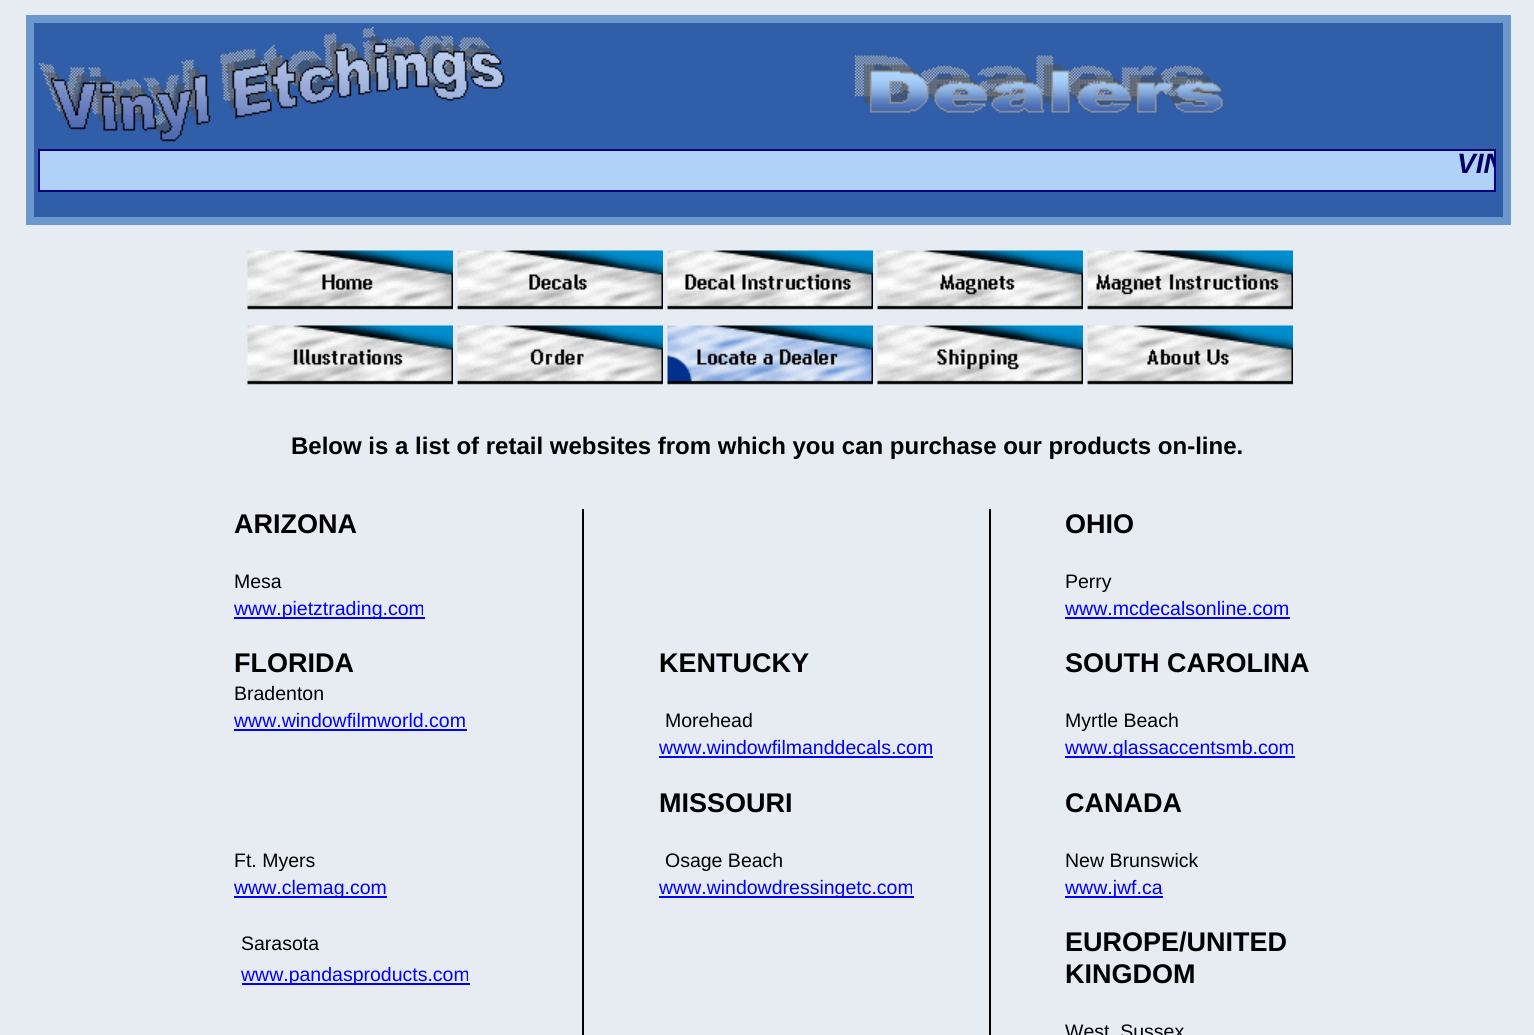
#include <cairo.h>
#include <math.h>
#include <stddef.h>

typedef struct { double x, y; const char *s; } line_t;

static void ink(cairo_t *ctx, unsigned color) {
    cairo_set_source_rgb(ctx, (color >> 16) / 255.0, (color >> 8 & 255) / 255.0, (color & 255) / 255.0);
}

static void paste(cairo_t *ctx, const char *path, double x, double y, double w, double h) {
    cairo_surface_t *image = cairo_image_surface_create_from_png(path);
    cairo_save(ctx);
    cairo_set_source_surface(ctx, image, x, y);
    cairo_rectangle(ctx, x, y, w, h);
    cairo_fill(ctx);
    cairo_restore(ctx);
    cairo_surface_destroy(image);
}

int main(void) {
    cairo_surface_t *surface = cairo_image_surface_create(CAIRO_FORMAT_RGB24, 1534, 1035);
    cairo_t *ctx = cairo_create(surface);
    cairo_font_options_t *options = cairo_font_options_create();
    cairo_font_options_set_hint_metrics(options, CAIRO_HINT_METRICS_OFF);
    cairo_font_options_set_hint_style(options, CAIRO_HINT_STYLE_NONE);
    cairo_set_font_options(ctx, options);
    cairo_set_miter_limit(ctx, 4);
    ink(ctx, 0xE6ECF2);
    cairo_paint(ctx);
    ink(ctx, 0x315EA8);
    cairo_rectangle(ctx, 30, 19, 1477, 202);
    cairo_fill_preserve(ctx);
    ink(ctx, 0x6C98CE);
    cairo_set_line_width(ctx, 8);
    cairo_stroke(ctx);
    paste(ctx, "media/1.png", 38, 27, 467, 115);
    paste(ctx, "media/2.png", 855, 55, 368, 58);
    ink(ctx, 0xB0D2F9);
    cairo_rectangle(ctx, 39, 150, 1456, 41);
    cairo_fill_preserve(ctx);
    ink(ctx, 0x000080);
    cairo_set_line_width(ctx, 2);
    cairo_stroke(ctx);
    cairo_save(ctx);
    cairo_rectangle(ctx, 39, 150, 1455, 41);
    cairo_clip(ctx);
    cairo_select_font_face(ctx, "Liberation Sans", CAIRO_FONT_SLANT_ITALIC, CAIRO_FONT_WEIGHT_BOLD);
    cairo_set_font_size(ctx, 28);
    ink(ctx, 0x000062);
    cairo_move_to(ctx, 1457, 173);
    cairo_show_text(ctx, "VIN");
    cairo_restore(ctx);
    paste(ctx, "media/3.png", 247, 250, 206, 60);
    paste(ctx, "media/4.png", 457, 250, 206, 60);
    paste(ctx, "media/5.png", 667, 250, 206, 60);
    paste(ctx, "media/6.png", 877, 250, 206, 60);
    paste(ctx, "media/7.png", 1087, 250, 206, 60);
    paste(ctx, "media/8.png", 247, 325, 206, 60);
    paste(ctx, "media/9.png", 457, 325, 206, 60);
    paste(ctx, "media/10.png", 667, 325, 206, 60);
    paste(ctx, "media/11.png", 877, 325, 206, 60);
    paste(ctx, "media/12.png", 1087, 325, 206, 60);
    cairo_select_font_face(ctx, "Liberation Sans", CAIRO_FONT_SLANT_NORMAL, CAIRO_FONT_WEIGHT_BOLD);
    cairo_set_font_size(ctx, 24);
    ink(ctx, 0x000000);
    cairo_move_to(ctx, 291, 454);
    cairo_show_text(ctx, "Below is a list of retail websites from which you can purchase our products on-line.");
    cairo_set_font_size(ctx, 27);
    cairo_move_to(ctx, 234, 533);
    cairo_show_text(ctx, "ARIZONA");
    cairo_move_to(ctx, 1065, 533);
    cairo_show_text(ctx, "OHIO");
    cairo_select_font_face(ctx, "Liberation Sans", CAIRO_FONT_SLANT_NORMAL, CAIRO_FONT_WEIGHT_NORMAL);
    cairo_set_font_size(ctx, 19.5);
    cairo_move_to(ctx, 234, 588);
    cairo_show_text(ctx, "Mesa");
    cairo_move_to(ctx, 1065, 588);
    cairo_show_text(ctx, "Perry");
    ink(ctx, 0x0000FF);
    cairo_rectangle(ctx, 234, 617, 191, 2);
    cairo_fill(ctx);
    cairo_move_to(ctx, 234, 615);
    cairo_show_text(ctx, "www.pietztrading.com");
    cairo_move_to(ctx, 1065, 615);
    cairo_show_text(ctx, "www.mcdecalsonline.com");
    cairo_rectangle(ctx, 1065, 617, 225, 2);
    cairo_fill(ctx);
    cairo_select_font_face(ctx, "Liberation Sans", CAIRO_FONT_SLANT_NORMAL, CAIRO_FONT_WEIGHT_BOLD);
    cairo_set_font_size(ctx, 27);
    ink(ctx, 0x000000);
    {
        static const line_t items[] = {
            {234, 672, "FLORIDA"},
            {659, 672, "KENTUCKY"},
            {1065, 672, "SOUTH CAROLINA"},
        };
        for (size_t i = 0; i < sizeof items / sizeof *items; i++) {
            cairo_move_to(ctx, items[i].x, items[i].y);
            cairo_show_text(ctx, items[i].s);
        }
    }
    cairo_select_font_face(ctx, "Liberation Sans", CAIRO_FONT_SLANT_NORMAL, CAIRO_FONT_WEIGHT_NORMAL);
    cairo_set_font_size(ctx, 19.5);
    cairo_move_to(ctx, 234, 700);
    cairo_show_text(ctx, "Bradenton");
    ink(ctx, 0x0000FF);
    cairo_move_to(ctx, 234, 727);
    cairo_show_text(ctx, "www.windowfilmworld.com");
    cairo_rectangle(ctx, 234, 729, 233, 2);
    cairo_fill(ctx);
    ink(ctx, 0x000000);
    cairo_move_to(ctx, 665, 727);
    cairo_show_text(ctx, "Morehead");
    cairo_move_to(ctx, 1065, 727);
    cairo_show_text(ctx, "Myrtle Beach");
    ink(ctx, 0x0000FF);
    cairo_move_to(ctx, 659, 754);
    cairo_show_text(ctx, "www.windowfilmanddecals.com");
    cairo_rectangle(ctx, 659, 756, 274, 2);
    cairo_fill(ctx);
    cairo_rectangle(ctx, 1065, 756, 230, 2);
    cairo_fill(ctx);
    cairo_move_to(ctx, 1065, 754);
    cairo_show_text(ctx, "www.glassaccentsmb.com");
    cairo_select_font_face(ctx, "Liberation Sans", CAIRO_FONT_SLANT_NORMAL, CAIRO_FONT_WEIGHT_BOLD);
    cairo_set_font_size(ctx, 27);
    ink(ctx, 0x000000);
    cairo_move_to(ctx, 659, 812);
    cairo_show_text(ctx, "MISSOURI");
    cairo_move_to(ctx, 1065, 812);
    cairo_show_text(ctx, "CANADA");
    cairo_select_font_face(ctx, "Liberation Sans", CAIRO_FONT_SLANT_NORMAL, CAIRO_FONT_WEIGHT_NORMAL);
    cairo_set_font_size(ctx, 19.5);
    {
        static const line_t items[] = {
            {234, 867, "Ft. Myers"},
            {665, 867, "Osage Beach"},
            {1065, 867, "New Brunswick"},
        };
        for (size_t i = 0; i < sizeof items / sizeof *items; i++) {
            cairo_move_to(ctx, items[i].x, items[i].y);
            cairo_show_text(ctx, items[i].s);
        }
    }
    ink(ctx, 0x0000FF);
    cairo_rectangle(ctx, 234, 896, 153, 2);
    cairo_fill(ctx);
    cairo_move_to(ctx, 234, 894);
    cairo_show_text(ctx, "www.clemag.com");
    cairo_rectangle(ctx, 659, 896, 255, 2);
    cairo_fill(ctx);
    cairo_move_to(ctx, 659, 894);
    cairo_show_text(ctx, "www.windowdressingetc.com");
    cairo_rectangle(ctx, 1065, 896, 98, 2);
    cairo_fill(ctx);
    cairo_move_to(ctx, 1065, 894);
    cairo_show_text(ctx, "www.jwf.ca");
    ink(ctx, 0x000000);
    cairo_move_to(ctx, 241, 950);
    cairo_show_text(ctx, "Sarasota");
    cairo_select_font_face(ctx, "Liberation Sans", CAIRO_FONT_SLANT_NORMAL, CAIRO_FONT_WEIGHT_BOLD);
    cairo_set_font_size(ctx, 27);
    cairo_move_to(ctx, 1065, 951);
    cairo_show_text(ctx, "EUROPE/UNITED");
    ink(ctx, 0x0000FF);
    cairo_rectangle(ctx, 242, 983, 228, 2);
    cairo_fill(ctx);
    cairo_select_font_face(ctx, "Liberation Sans", CAIRO_FONT_SLANT_NORMAL, CAIRO_FONT_WEIGHT_NORMAL);
    cairo_set_font_size(ctx, 19.5);
    cairo_move_to(ctx, 241, 981);
    cairo_show_text(ctx, "www.pandasproducts.com");
    cairo_select_font_face(ctx, "Liberation Sans", CAIRO_FONT_SLANT_NORMAL, CAIRO_FONT_WEIGHT_BOLD);
    cairo_set_font_size(ctx, 27);
    ink(ctx, 0x000000);
    cairo_move_to(ctx, 1065, 983);
    cairo_show_text(ctx, "KINGDOM");
    cairo_rectangle(ctx, 582, 509, 2, 526);
    cairo_fill(ctx);
    cairo_rectangle(ctx, 989, 509, 2, 526);
    cairo_fill(ctx);
    cairo_select_font_face(ctx, "Liberation Sans", CAIRO_FONT_SLANT_NORMAL, CAIRO_FONT_WEIGHT_NORMAL);
    cairo_set_font_size(ctx, 19.5);
    cairo_move_to(ctx, 1065, 1038);
    cairo_show_text(ctx, "West  Sussex");
    cairo_surface_write_to_png(surface, "image.png");
    cairo_font_options_destroy(options);
    cairo_destroy(ctx);
    cairo_surface_destroy(surface);
    return 0;
}
